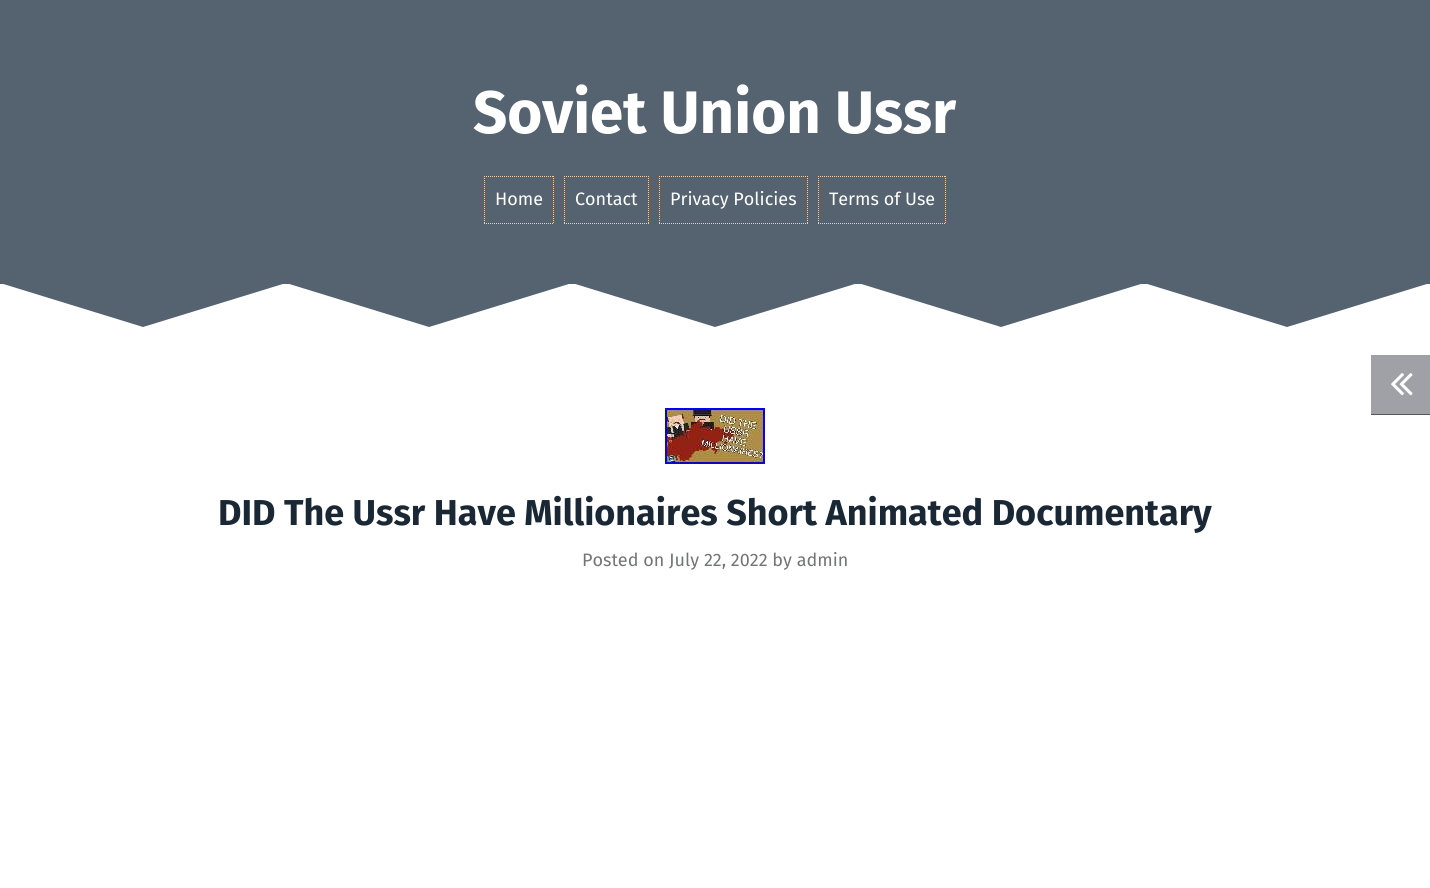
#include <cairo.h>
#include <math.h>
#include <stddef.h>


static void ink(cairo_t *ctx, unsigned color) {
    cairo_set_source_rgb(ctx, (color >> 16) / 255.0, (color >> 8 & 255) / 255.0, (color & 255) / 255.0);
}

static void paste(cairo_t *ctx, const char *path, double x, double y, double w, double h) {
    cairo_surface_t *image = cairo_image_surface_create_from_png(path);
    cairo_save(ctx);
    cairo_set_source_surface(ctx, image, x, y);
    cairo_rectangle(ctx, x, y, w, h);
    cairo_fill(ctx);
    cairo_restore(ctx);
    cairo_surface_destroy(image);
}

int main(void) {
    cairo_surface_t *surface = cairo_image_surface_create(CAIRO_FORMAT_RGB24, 1430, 888);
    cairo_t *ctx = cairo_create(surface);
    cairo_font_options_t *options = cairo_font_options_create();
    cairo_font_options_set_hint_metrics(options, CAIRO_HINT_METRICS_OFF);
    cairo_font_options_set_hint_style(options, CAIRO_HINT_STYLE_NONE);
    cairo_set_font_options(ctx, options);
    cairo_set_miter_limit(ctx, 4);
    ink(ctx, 0xFFFFFF);
    cairo_paint(ctx);
    ink(ctx, 0x556270);
    cairo_rectangle(ctx, 0, 0, 1430, 284);
    cairo_fill(ctx);
    cairo_select_font_face(ctx, "Fira Sans", CAIRO_FONT_SLANT_NORMAL, CAIRO_FONT_WEIGHT_BOLD);
    cairo_set_font_size(ctx, 60);
    ink(ctx, 0xFFFFFF);
    cairo_move_to(ctx, 473, 133);
    cairo_show_text(ctx, "Soviet Union Ussr");
    cairo_new_path(ctx);
    cairo_move_to(ctx, 484, 176.5);
    cairo_line_to(ctx, 554, 176.5);
    ink(ctx, 0xFFCC99);
    cairo_set_line_width(ctx, 1);
    cairo_set_dash(ctx, (double[]){1, 1}, 2, 0);
    cairo_stroke(ctx);
    cairo_new_path(ctx);
    cairo_move_to(ctx, 553.5, 176);
    cairo_line_to(ctx, 553.5, 224);
    cairo_stroke(ctx);
    cairo_new_path(ctx);
    cairo_move_to(ctx, 484, 223.5);
    cairo_line_to(ctx, 554, 223.5);
    cairo_stroke(ctx);
    cairo_new_path(ctx);
    cairo_move_to(ctx, 484.5, 176);
    cairo_line_to(ctx, 484.5, 224);
    cairo_stroke(ctx);
    cairo_select_font_face(ctx, "Fira Sans", CAIRO_FONT_SLANT_NORMAL, CAIRO_FONT_WEIGHT_NORMAL);
    cairo_set_font_size(ctx, 18);
    ink(ctx, 0xFFFFFF);
    cairo_move_to(ctx, 495, 205);
    cairo_show_text(ctx, "Home");
    cairo_new_path(ctx);
    cairo_move_to(ctx, 564, 176.5);
    cairo_line_to(ctx, 649, 176.5);
    ink(ctx, 0xFFCC99);
    cairo_stroke(ctx);
    cairo_new_path(ctx);
    cairo_move_to(ctx, 648.5, 176);
    cairo_line_to(ctx, 648.5, 224);
    cairo_stroke(ctx);
    cairo_new_path(ctx);
    cairo_move_to(ctx, 564, 223.5);
    cairo_line_to(ctx, 649, 223.5);
    cairo_stroke(ctx);
    cairo_new_path(ctx);
    cairo_move_to(ctx, 564.5, 176);
    cairo_line_to(ctx, 564.5, 224);
    cairo_stroke(ctx);
    ink(ctx, 0xFFFFFF);
    cairo_move_to(ctx, 575, 205);
    cairo_show_text(ctx, "Contact");
    cairo_new_path(ctx);
    cairo_move_to(ctx, 659, 176.5);
    cairo_line_to(ctx, 808, 176.5);
    ink(ctx, 0xFFCC99);
    cairo_stroke(ctx);
    cairo_new_path(ctx);
    cairo_move_to(ctx, 807.5, 176);
    cairo_line_to(ctx, 807.5, 224);
    cairo_stroke(ctx);
    cairo_new_path(ctx);
    cairo_move_to(ctx, 659, 223.5);
    cairo_line_to(ctx, 808, 223.5);
    cairo_stroke(ctx);
    cairo_new_path(ctx);
    cairo_move_to(ctx, 659.5, 176);
    cairo_line_to(ctx, 659.5, 224);
    cairo_stroke(ctx);
    ink(ctx, 0xFFFFFF);
    cairo_move_to(ctx, 670, 205);
    cairo_show_text(ctx, "Privacy Policies");
    cairo_new_path(ctx);
    cairo_move_to(ctx, 818, 176.5);
    cairo_line_to(ctx, 946, 176.5);
    ink(ctx, 0xFFCC99);
    cairo_stroke(ctx);
    cairo_new_path(ctx);
    cairo_move_to(ctx, 945.5, 176);
    cairo_line_to(ctx, 945.5, 224);
    cairo_stroke(ctx);
    cairo_new_path(ctx);
    cairo_move_to(ctx, 818, 223.5);
    cairo_line_to(ctx, 946, 223.5);
    cairo_stroke(ctx);
    cairo_new_path(ctx);
    cairo_move_to(ctx, 818.5, 176);
    cairo_line_to(ctx, 818.5, 224);
    cairo_stroke(ctx);
    ink(ctx, 0xFFFFFF);
    cairo_move_to(ctx, 829, 205);
    cairo_show_text(ctx, "Terms of Use");
    ink(ctx, 0x556270);
    cairo_new_path(ctx);
    cairo_move_to(ctx, 0, 283);
    cairo_line_to(ctx, 143, 327);
    cairo_line_to(ctx, 286, 283);
    cairo_fill(ctx);
    cairo_new_path(ctx);
    cairo_move_to(ctx, 286, 283);
    cairo_line_to(ctx, 429, 327);
    cairo_line_to(ctx, 572, 283);
    cairo_fill(ctx);
    cairo_new_path(ctx);
    cairo_move_to(ctx, 572, 283);
    cairo_line_to(ctx, 715, 327);
    cairo_line_to(ctx, 858, 283);
    cairo_fill(ctx);
    cairo_new_path(ctx);
    cairo_move_to(ctx, 858, 283);
    cairo_line_to(ctx, 1001, 327);
    cairo_line_to(ctx, 1144, 283);
    cairo_fill(ctx);
    cairo_new_path(ctx);
    cairo_move_to(ctx, 1144, 283);
    cairo_line_to(ctx, 1287, 327);
    cairo_line_to(ctx, 1430, 283);
    cairo_fill(ctx);
    ink(ctx, 0x9FA1A6);
    cairo_rectangle(ctx, 1371, 355, 59, 59);
    cairo_fill(ctx);
    ink(ctx, 0x575757);
    cairo_rectangle(ctx, 1371, 414, 59, 1);
    cairo_fill(ctx);
    paste(ctx, "media/1.png", 1391, 373, 22, 23);
    paste(ctx, "media/2.png", 665, 408, 100, 56);
    cairo_select_font_face(ctx, "Fira Sans", CAIRO_FONT_SLANT_NORMAL, CAIRO_FONT_WEIGHT_BOLD);
    cairo_set_font_size(ctx, 36);
    ink(ctx, 0x1A2835);
    cairo_move_to(ctx, 218, 525);
    cairo_show_text(ctx, "DID The Ussr Have Millionaires Short Animated Documentary");
    cairo_select_font_face(ctx, "Fira Sans", CAIRO_FONT_SLANT_NORMAL, CAIRO_FONT_WEIGHT_NORMAL);
    cairo_set_font_size(ctx, 18);
    ink(ctx, 0x727475);
    cairo_move_to(ctx, 582, 566);
    cairo_show_text(ctx, "Posted on July 22, 2022 by admin");
    cairo_surface_write_to_png(surface, "image.png");
    cairo_font_options_destroy(options);
    cairo_destroy(ctx);
    cairo_surface_destroy(surface);
    return 0;
}
